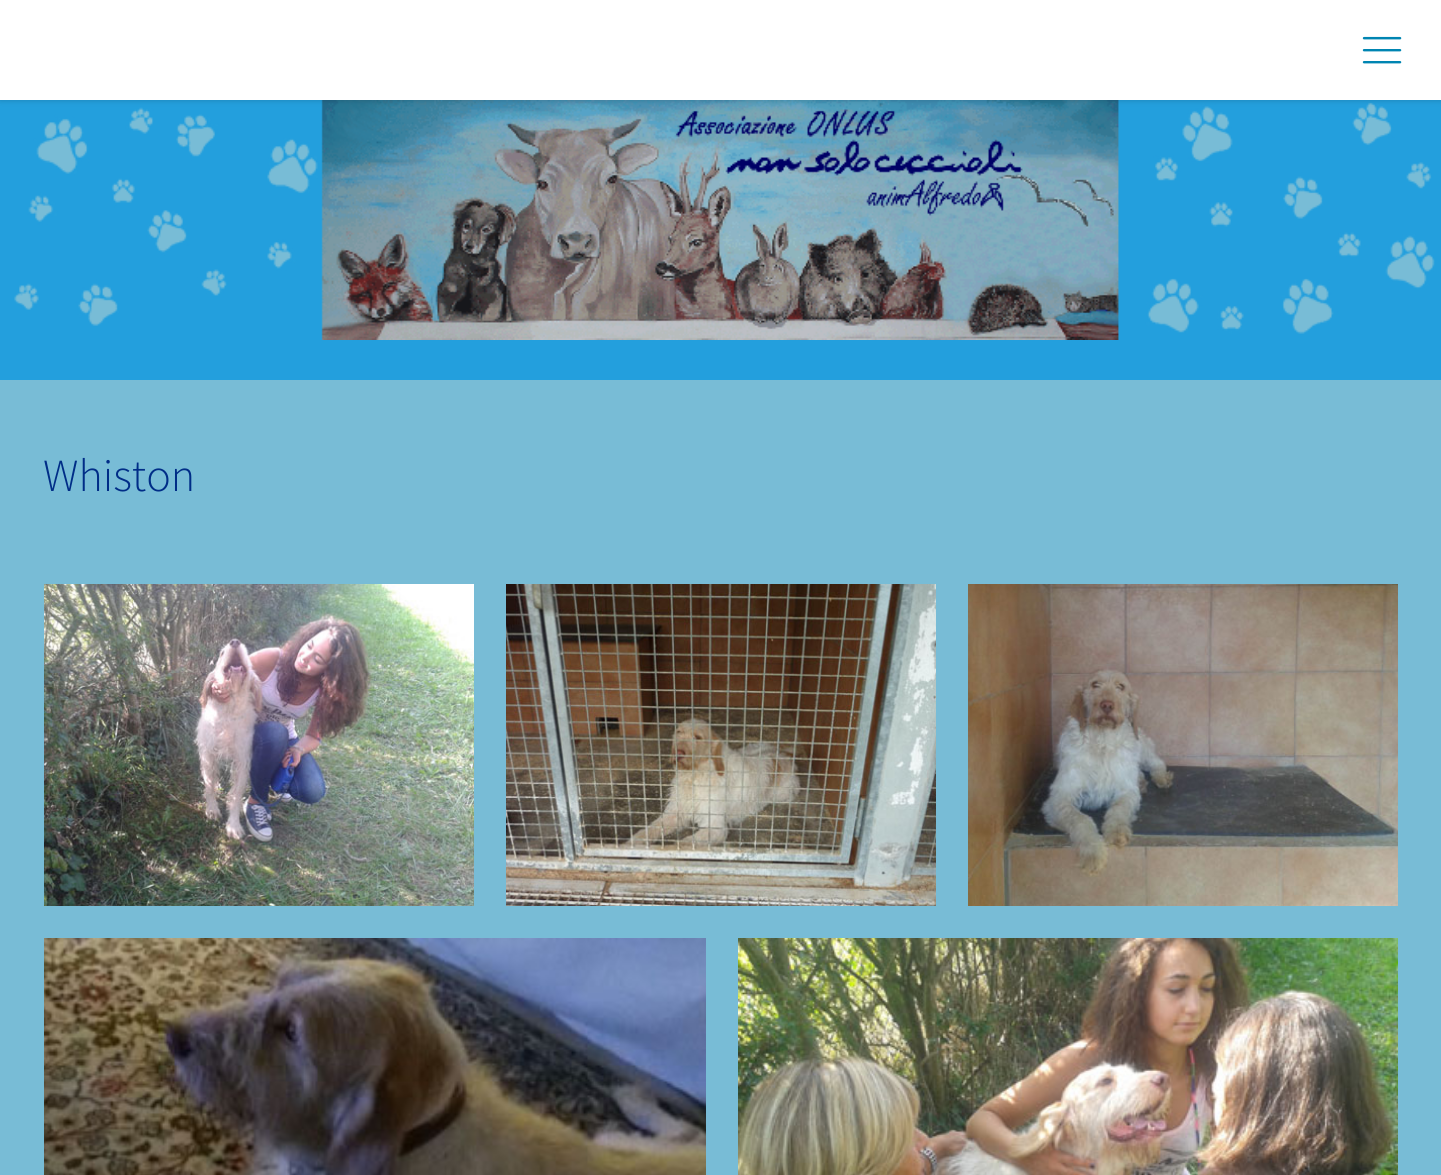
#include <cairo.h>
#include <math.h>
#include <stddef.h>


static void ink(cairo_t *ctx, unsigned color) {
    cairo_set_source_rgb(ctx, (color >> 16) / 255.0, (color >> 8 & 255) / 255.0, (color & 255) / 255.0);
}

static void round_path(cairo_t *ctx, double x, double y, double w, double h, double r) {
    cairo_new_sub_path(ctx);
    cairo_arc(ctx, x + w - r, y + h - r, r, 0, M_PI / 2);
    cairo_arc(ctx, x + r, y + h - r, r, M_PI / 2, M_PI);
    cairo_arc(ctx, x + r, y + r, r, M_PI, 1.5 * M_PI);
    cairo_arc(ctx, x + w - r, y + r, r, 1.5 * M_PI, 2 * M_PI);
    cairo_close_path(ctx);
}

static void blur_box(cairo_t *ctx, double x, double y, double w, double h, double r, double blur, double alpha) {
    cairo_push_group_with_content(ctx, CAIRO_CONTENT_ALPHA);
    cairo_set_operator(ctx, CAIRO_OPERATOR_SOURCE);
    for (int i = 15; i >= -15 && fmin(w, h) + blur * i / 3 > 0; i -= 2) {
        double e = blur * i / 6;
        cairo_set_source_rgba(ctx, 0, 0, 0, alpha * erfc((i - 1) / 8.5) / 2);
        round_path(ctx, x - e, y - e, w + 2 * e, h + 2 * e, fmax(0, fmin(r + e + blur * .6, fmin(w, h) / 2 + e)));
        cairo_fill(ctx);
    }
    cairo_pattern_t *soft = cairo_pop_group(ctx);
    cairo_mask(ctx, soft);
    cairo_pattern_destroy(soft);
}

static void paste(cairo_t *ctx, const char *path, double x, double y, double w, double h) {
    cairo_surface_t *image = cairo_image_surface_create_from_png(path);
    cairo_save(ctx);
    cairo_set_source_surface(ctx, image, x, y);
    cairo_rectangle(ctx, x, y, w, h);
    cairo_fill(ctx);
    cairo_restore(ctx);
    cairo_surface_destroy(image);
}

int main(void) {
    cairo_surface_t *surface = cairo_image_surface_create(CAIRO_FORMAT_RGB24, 1441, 1175);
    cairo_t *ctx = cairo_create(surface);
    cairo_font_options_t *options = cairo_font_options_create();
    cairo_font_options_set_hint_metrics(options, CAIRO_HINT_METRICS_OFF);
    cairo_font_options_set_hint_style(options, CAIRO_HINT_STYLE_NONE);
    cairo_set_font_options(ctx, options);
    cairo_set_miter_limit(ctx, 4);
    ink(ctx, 0x239FDD);
    cairo_paint(ctx);
    paste(ctx, "media/2.png", 14, 100, 1421, 240);
    ink(ctx, 0x000000);
    blur_box(ctx, 0, 0, 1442, 100, 0, 3, 0.2);
    ink(ctx, 0xFFFFFF);
    cairo_rectangle(ctx, 0, 0, 1441, 100);
    cairo_fill(ctx);
    paste(ctx, "media/1.png", 1362, 36, 40, 28);
    ink(ctx, 0x78BCD6);
    cairo_rectangle(ctx, 0, 380, 1441, 795);
    cairo_fill(ctx);
    cairo_select_font_face(ctx, "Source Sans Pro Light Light", CAIRO_FONT_SLANT_NORMAL, CAIRO_FONT_WEIGHT_NORMAL);
    cairo_set_font_size(ctx, 46);
    ink(ctx, 0x002D87);
    cairo_move_to(ctx, 43, 491);
    cairo_show_text(ctx, "Whiston");
    paste(ctx, "media/3.png", 44, 584, 430, 322);
    paste(ctx, "media/4.png", 506, 584, 430, 322);
    paste(ctx, "media/5.png", 968, 584, 430, 322);
    paste(ctx, "media/6.png", 44, 938, 662, 237);
    paste(ctx, "media/7.png", 738, 938, 660, 237);
    cairo_surface_write_to_png(surface, "image.png");
    cairo_font_options_destroy(options);
    cairo_destroy(ctx);
    cairo_surface_destroy(surface);
    return 0;
}
